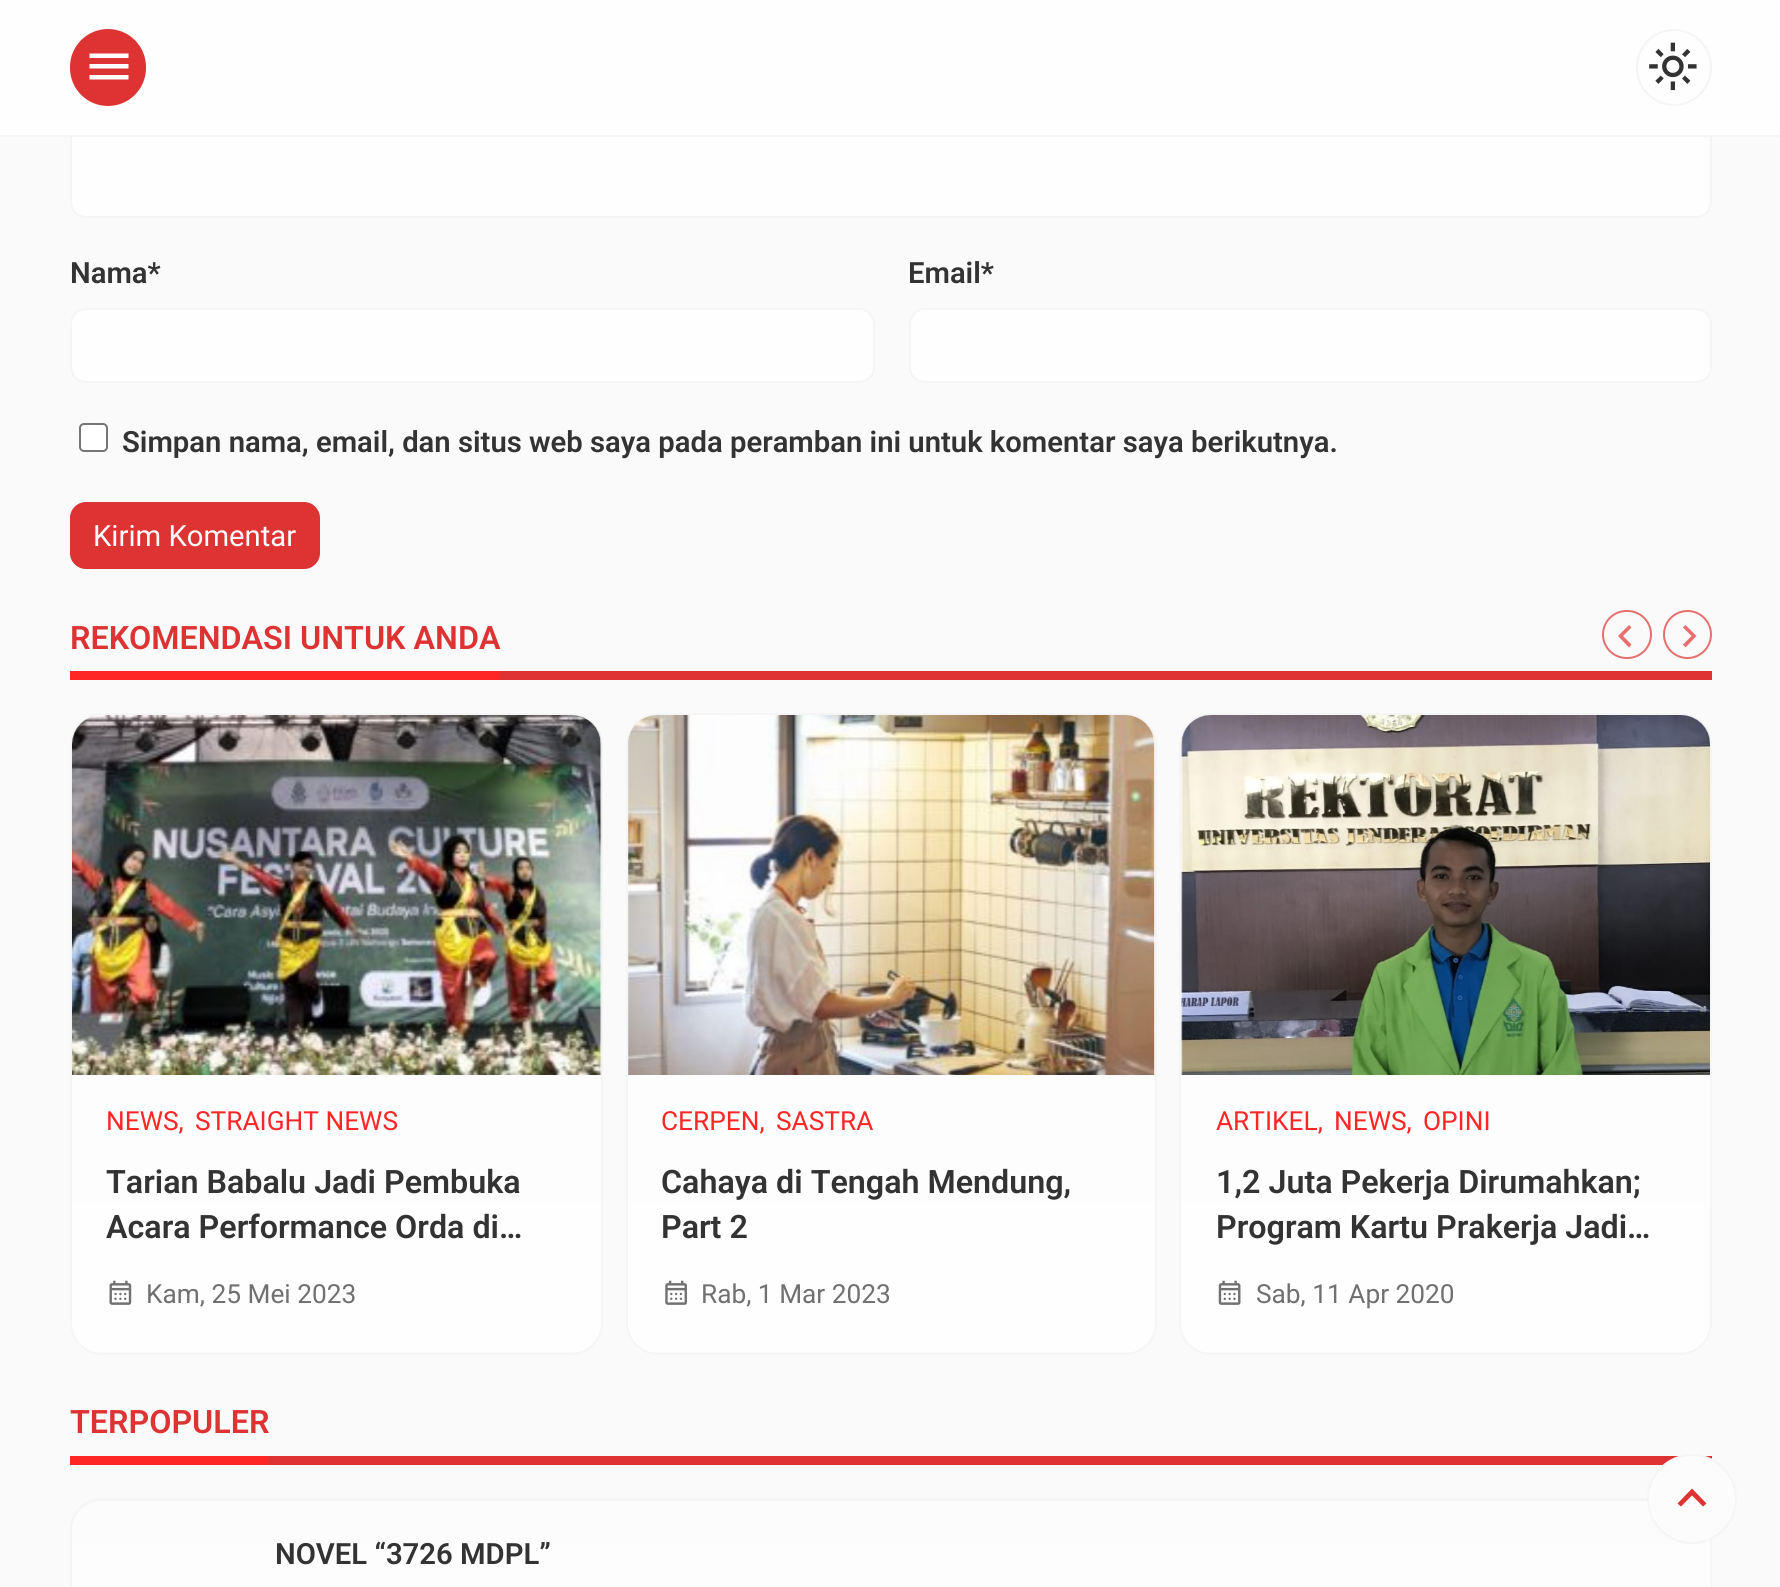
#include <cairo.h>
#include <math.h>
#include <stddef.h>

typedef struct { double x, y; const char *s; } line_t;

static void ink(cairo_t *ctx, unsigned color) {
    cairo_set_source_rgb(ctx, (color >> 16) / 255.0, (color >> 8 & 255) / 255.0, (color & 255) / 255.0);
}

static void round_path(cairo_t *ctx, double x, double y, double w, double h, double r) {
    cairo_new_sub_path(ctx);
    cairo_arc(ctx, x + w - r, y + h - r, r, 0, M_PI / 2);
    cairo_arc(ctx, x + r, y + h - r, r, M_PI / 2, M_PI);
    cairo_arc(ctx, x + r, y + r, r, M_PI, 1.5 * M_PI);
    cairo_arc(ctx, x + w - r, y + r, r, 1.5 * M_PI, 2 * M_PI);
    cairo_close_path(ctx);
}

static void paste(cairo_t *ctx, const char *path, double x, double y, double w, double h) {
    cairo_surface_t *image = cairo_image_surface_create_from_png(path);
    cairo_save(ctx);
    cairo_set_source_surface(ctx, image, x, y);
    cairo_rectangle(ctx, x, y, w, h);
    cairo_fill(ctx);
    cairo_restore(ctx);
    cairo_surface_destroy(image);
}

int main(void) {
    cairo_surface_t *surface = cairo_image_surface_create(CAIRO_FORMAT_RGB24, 1780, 1587);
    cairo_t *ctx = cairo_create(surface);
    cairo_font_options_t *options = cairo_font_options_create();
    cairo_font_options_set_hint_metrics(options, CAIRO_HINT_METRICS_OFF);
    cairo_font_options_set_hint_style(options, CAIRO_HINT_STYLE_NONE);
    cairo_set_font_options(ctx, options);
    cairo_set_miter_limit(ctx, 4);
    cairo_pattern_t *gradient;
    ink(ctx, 0xFAFAFA);
    cairo_paint(ctx);
    ink(ctx, 0xFEFEFE);
    round_path(ctx, 71, -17, 1640, 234, 15);
    cairo_fill_preserve(ctx);
    ink(ctx, 0xF5F5F5);
    cairo_stroke(ctx);
    ink(ctx, 0xFEFEFE);
    cairo_rectangle(ctx, 0, 0, 1780, 135);
    cairo_fill(ctx);
    ink(ctx, 0xF5F5F5);
    cairo_rectangle(ctx, 0, 135, 1780, 2);
    cairo_fill(ctx);
    ink(ctx, 0xDD3333);
    round_path(ctx, 70, 29, 76, 77, 38);
    cairo_fill(ctx);
    ink(ctx, 0xFFFFFF);
    cairo_new_path(ctx);
    cairo_move_to(ctx, 89.5, 79.5);
    cairo_line_to(ctx, 89.5, 75);
    cairo_line_to(ctx, 128.5, 75);
    cairo_line_to(ctx, 128.5, 79.5);
    cairo_close_path(ctx);
    cairo_move_to(ctx, 89.5, 68.5);
    cairo_line_to(ctx, 89.5, 64);
    cairo_line_to(ctx, 128.5, 64);
    cairo_line_to(ctx, 128.5, 68.5);
    cairo_close_path(ctx);
    cairo_move_to(ctx, 89.5, 58);
    cairo_line_to(ctx, 89.5, 53.5);
    cairo_line_to(ctx, 128.5, 53.5);
    cairo_line_to(ctx, 128.5, 58);
    cairo_close_path(ctx);
    cairo_fill(ctx);
    round_path(ctx, 1637, 30, 74, 75, 37);
    ink(ctx, 0xF5F5F5);
    cairo_stroke(ctx);
    paste(ctx, "media/1.png", 1649, 42, 48, 49);
    cairo_select_font_face(ctx, "Roboto SemiBold", CAIRO_FONT_SLANT_NORMAL, CAIRO_FONT_WEIGHT_NORMAL);
    cairo_set_font_size(ctx, 29.25);
    ink(ctx, 0x333333);
    cairo_move_to(ctx, 70, 283);
    cairo_show_text(ctx, "Nama*");
    ink(ctx, 0xFEFEFE);
    round_path(ctx, 71, 309, 803, 73, 15);
    cairo_fill_preserve(ctx);
    ink(ctx, 0xF5F5F5);
    cairo_stroke(ctx);
    ink(ctx, 0x333333);
    cairo_move_to(ctx, 908, 283);
    cairo_show_text(ctx, "Email*");
    ink(ctx, 0xFEFEFE);
    round_path(ctx, 910, 309, 801, 73, 15);
    cairo_fill_preserve(ctx);
    ink(ctx, 0xF5F5F5);
    cairo_stroke(ctx);
    ink(ctx, 0xFFFFFF);
    round_path(ctx, 80, 424, 27, 27, 4);
    cairo_fill_preserve(ctx);
    ink(ctx, 0x767676);
    cairo_stroke(ctx);
    ink(ctx, 0x333333);
    cairo_move_to(ctx, 122, 452);
    cairo_show_text(ctx, "Simpan nama, email, dan situs web saya pada peramban ini untuk komentar saya berikutnya.");
    ink(ctx, 0xDD3333);
    round_path(ctx, 70, 502, 250, 67, 16);
    cairo_fill(ctx);
    cairo_select_font_face(ctx, "Roboto", CAIRO_FONT_SLANT_NORMAL, CAIRO_FONT_WEIGHT_NORMAL);
    ink(ctx, 0xFFFFFF);
    cairo_move_to(ctx, 93, 546);
    cairo_show_text(ctx, "Kirim Komentar");
    ink(ctx, 0xFF2626);
    cairo_rectangle(ctx, 70, 671, 430, 9);
    cairo_fill(ctx);
    cairo_select_font_face(ctx, "Roboto SemiBold", CAIRO_FONT_SLANT_NORMAL, CAIRO_FONT_WEIGHT_NORMAL);
    cairo_set_font_size(ctx, 32.25);
    ink(ctx, 0xDD3333);
    cairo_move_to(ctx, 70, 649);
    cairo_show_text(ctx, "REKOMENDASI UNTUK ANDA");
    cairo_rectangle(ctx, 500, 671, 1212, 9);
    cairo_fill(ctx);
    round_path(ctx, 1603, 611, 48, 47, 23.5);
    ink(ctx, 0xE66F6F);
    cairo_stroke(ctx);
    cairo_new_path(ctx);
    cairo_move_to(ctx, 1629, 625);
    cairo_line_to(ctx, 1631.5, 627.5);
    cairo_line_to(ctx, 1623, 636);
    cairo_line_to(ctx, 1631.5, 644.5);
    cairo_line_to(ctx, 1629, 647.5);
    cairo_line_to(ctx, 1618, 636);
    cairo_close_path(ctx);
    cairo_fill(ctx);
    cairo_arc(ctx, 1687.5, 634.5, 23.5, 0, 2 * M_PI);
    cairo_stroke(ctx);
    cairo_new_path(ctx);
    cairo_move_to(ctx, 1685.5, 625);
    cairo_line_to(ctx, 1683, 627.5);
    cairo_line_to(ctx, 1691.5, 636);
    cairo_line_to(ctx, 1683, 644.5);
    cairo_line_to(ctx, 1685.5, 647.5);
    cairo_line_to(ctx, 1696.5, 636);
    cairo_close_path(ctx);
    cairo_fill(ctx);
    cairo_save(ctx);
    round_path(ctx, 70, 713, 533, 642, 32);
    cairo_clip(ctx);
    gradient = cairo_pattern_create_linear(337, 716, 337, 1352);
    cairo_pattern_add_color_stop_rgba(gradient, 0, 0.988, 0.988, 0.988, 1);
    cairo_pattern_add_color_stop_rgba(gradient, 1, 0.996, 0.996, 0.996, 1);
    cairo_set_source(ctx, gradient);
    cairo_pattern_destroy(gradient);
    cairo_rectangle(ctx, 70, 716, 533, 636);
    cairo_fill(ctx);
    cairo_restore(ctx);
    round_path(ctx, 71, 714, 531, 640, 31);
    ink(ctx, 0xF5F5F5);
    cairo_stroke(ctx);
    paste(ctx, "media/2.png", 72, 715, 530, 360);
    cairo_select_font_face(ctx, "Roboto", CAIRO_FONT_SLANT_NORMAL, CAIRO_FONT_WEIGHT_NORMAL);
    cairo_set_font_size(ctx, 26.25);
    ink(ctx, 0xFF2626);
    cairo_move_to(ctx, 106, 1130);
    cairo_show_text(ctx, "NEWS,");
    cairo_move_to(ctx, 195, 1130);
    cairo_show_text(ctx, "STRAIGHT NEWS");
    cairo_select_font_face(ctx, "Roboto SemiBold", CAIRO_FONT_SLANT_NORMAL, CAIRO_FONT_WEIGHT_NORMAL);
    cairo_set_font_size(ctx, 32.25);
    ink(ctx, 0x333333);
    cairo_move_to(ctx, 106, 1193);
    cairo_show_text(ctx, "Tarian Babalu Jadi Pembuka");
    cairo_move_to(ctx, 106, 1238);
    cairo_show_text(ctx, "Acara Performance Orda di…");
    paste(ctx, "media/3.png", 109, 1280, 23, 25);
    cairo_select_font_face(ctx, "Roboto", CAIRO_FONT_SLANT_NORMAL, CAIRO_FONT_WEIGHT_NORMAL);
    cairo_set_font_size(ctx, 26.25);
    ink(ctx, 0x707070);
    cairo_move_to(ctx, 146, 1303);
    cairo_show_text(ctx, "Kam, 25 Mei 2023");
    cairo_save(ctx);
    round_path(ctx, 626, 713, 531, 642, 32);
    cairo_clip(ctx);
    gradient = cairo_pattern_create_linear(891, 716, 891, 1352);
    cairo_pattern_add_color_stop_rgba(gradient, 0, 0.988, 0.988, 0.988, 1);
    cairo_pattern_add_color_stop_rgba(gradient, 1, 0.996, 0.996, 0.996, 1);
    cairo_set_source(ctx, gradient);
    cairo_pattern_destroy(gradient);
    cairo_rectangle(ctx, 626, 716, 531, 636);
    cairo_fill(ctx);
    cairo_restore(ctx);
    round_path(ctx, 627, 714, 529, 640, 31);
    ink(ctx, 0xF5F5F5);
    cairo_stroke(ctx);
    paste(ctx, "media/4.png", 628, 715, 527, 360);
    ink(ctx, 0xFF2626);
    cairo_move_to(ctx, 661, 1130);
    cairo_show_text(ctx, "CERPEN,");
    cairo_move_to(ctx, 776, 1130);
    cairo_show_text(ctx, "SASTRA");
    cairo_select_font_face(ctx, "Roboto SemiBold", CAIRO_FONT_SLANT_NORMAL, CAIRO_FONT_WEIGHT_NORMAL);
    cairo_set_font_size(ctx, 32.25);
    ink(ctx, 0x333333);
    cairo_move_to(ctx, 661, 1193);
    cairo_show_text(ctx, "Cahaya di Tengah Mendung,");
    cairo_move_to(ctx, 661, 1238);
    cairo_show_text(ctx, "Part 2");
    paste(ctx, "media/5.png", 665, 1280, 22, 25);
    cairo_select_font_face(ctx, "Roboto", CAIRO_FONT_SLANT_NORMAL, CAIRO_FONT_WEIGHT_NORMAL);
    cairo_set_font_size(ctx, 26.25);
    ink(ctx, 0x707070);
    cairo_move_to(ctx, 701, 1303);
    cairo_show_text(ctx, "Rab, 1 Mar 2023");
    cairo_save(ctx);
    round_path(ctx, 1179, 713, 533, 642, 32);
    cairo_clip(ctx);
    gradient = cairo_pattern_create_linear(1446, 716, 1446, 1352);
    cairo_pattern_add_color_stop_rgba(gradient, 0, 0.988, 0.988, 0.988, 1);
    cairo_pattern_add_color_stop_rgba(gradient, 1, 0.996, 0.996, 0.996, 1);
    cairo_set_source(ctx, gradient);
    cairo_pattern_destroy(gradient);
    cairo_rectangle(ctx, 1179, 716, 533, 636);
    cairo_fill(ctx);
    cairo_restore(ctx);
    round_path(ctx, 1180, 714, 531, 640, 31);
    ink(ctx, 0xF5F5F5);
    cairo_stroke(ctx);
    paste(ctx, "media/6.png", 1181, 715, 529, 360);
    ink(ctx, 0xFF2626);
    {
        static const line_t items[] = {
            {1216, 1130, "ARTIKEL,"},
            {1334, 1130, "NEWS,"},
            {1423, 1130, "OPINI"},
        };
        for (size_t i = 0; i < sizeof items / sizeof *items; i++) {
            cairo_move_to(ctx, items[i].x, items[i].y);
            cairo_show_text(ctx, items[i].s);
        }
    }
    cairo_select_font_face(ctx, "Roboto SemiBold", CAIRO_FONT_SLANT_NORMAL, CAIRO_FONT_WEIGHT_NORMAL);
    cairo_set_font_size(ctx, 32.25);
    ink(ctx, 0x333333);
    cairo_move_to(ctx, 1216, 1193);
    cairo_show_text(ctx, "1,2 Juta Pekerja Dirumahkan;");
    cairo_move_to(ctx, 1216, 1238);
    cairo_show_text(ctx, "Program Kartu Prakerja Jadi…");
    paste(ctx, "media/7.png", 1218, 1280, 23, 25);
    cairo_select_font_face(ctx, "Roboto", CAIRO_FONT_SLANT_NORMAL, CAIRO_FONT_WEIGHT_NORMAL);
    cairo_set_font_size(ctx, 26.25);
    ink(ctx, 0x707070);
    cairo_move_to(ctx, 1256, 1303);
    cairo_show_text(ctx, "Sab, 11 Apr 2020");
    ink(ctx, 0xFF2626);
    cairo_rectangle(ctx, 70, 1456, 198, 9);
    cairo_fill(ctx);
    cairo_select_font_face(ctx, "Roboto SemiBold", CAIRO_FONT_SLANT_NORMAL, CAIRO_FONT_WEIGHT_NORMAL);
    cairo_set_font_size(ctx, 32.25);
    ink(ctx, 0xDD3333);
    cairo_move_to(ctx, 70, 1433);
    cairo_show_text(ctx, "TERPOPULER");
    cairo_rectangle(ctx, 268, 1456, 1444, 9);
    cairo_fill(ctx);
    gradient = cairo_pattern_create_linear(891, 1501, 891, 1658);
    cairo_pattern_add_color_stop_rgba(gradient, 0, 0.988, 0.988, 0.988, 1);
    cairo_pattern_add_color_stop_rgba(gradient, 1, 0.996, 0.996, 0.996, 1);
    cairo_set_source(ctx, gradient);
    cairo_pattern_destroy(gradient);
    cairo_new_path(ctx);
    cairo_move_to(ctx, 101, 1501);
    cairo_line_to(ctx, 1681, 1501);
    cairo_curve_to(ctx, 1697, 1501, 1710, 1514, 1710, 1530);
    cairo_line_to(ctx, 1710, 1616);
    cairo_line_to(ctx, 72, 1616);
    cairo_line_to(ctx, 72, 1530);
    cairo_curve_to(ctx, 72, 1514, 85, 1501, 101, 1501);
    cairo_close_path(ctx);
    cairo_fill(ctx);
    ink(ctx, 0xF5F5F5);
    cairo_set_fill_rule(ctx, CAIRO_FILL_RULE_EVEN_ODD);
    cairo_new_path(ctx);
    cairo_move_to(ctx, 101, 1498);
    cairo_line_to(ctx, 1681, 1498);
    cairo_curve_to(ctx, 1698, 1498, 1712, 1513, 1712, 1530);
    cairo_line_to(ctx, 1712, 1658);
    cairo_line_to(ctx, 70, 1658);
    cairo_line_to(ctx, 70, 1530);
    cairo_curve_to(ctx, 70, 1513, 84, 1498, 101, 1498);
    cairo_close_path(ctx);
    cairo_move_to(ctx, 101, 1501);
    cairo_line_to(ctx, 1681, 1501);
    cairo_curve_to(ctx, 1697, 1501, 1710, 1514, 1710, 1530);
    cairo_line_to(ctx, 1710, 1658);
    cairo_line_to(ctx, 72, 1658);
    cairo_line_to(ctx, 72, 1530);
    cairo_curve_to(ctx, 72, 1514, 85, 1501, 101, 1501);
    cairo_close_path(ctx);
    cairo_fill(ctx);
    cairo_set_font_size(ctx, 29.25);
    ink(ctx, 0x333333);
    cairo_move_to(ctx, 275, 1564);
    cairo_show_text(ctx, "NOVEL “3726 MDPL”");
    ink(ctx, 0xFCFCFC);
    cairo_new_path(ctx);
    cairo_arc(ctx, 1692, 1499, 44, 0, 2 * M_PI);
    cairo_fill_preserve(ctx);
    ink(ctx, 0xF5F5F5);
    cairo_stroke(ctx);
    ink(ctx, 0xDD3333);
    cairo_set_fill_rule(ctx, CAIRO_FILL_RULE_WINDING);
    cairo_new_path(ctx);
    cairo_move_to(ctx, 1681, 1506.5);
    cairo_line_to(ctx, 1677.5, 1503.5);
    cairo_line_to(ctx, 1692, 1488.5);
    cairo_line_to(ctx, 1706.5, 1503.5);
    cairo_line_to(ctx, 1703, 1506.5);
    cairo_line_to(ctx, 1692, 1495.5);
    cairo_close_path(ctx);
    cairo_fill(ctx);
    cairo_surface_write_to_png(surface, "image.png");
    cairo_font_options_destroy(options);
    cairo_destroy(ctx);
    cairo_surface_destroy(surface);
    return 0;
}
